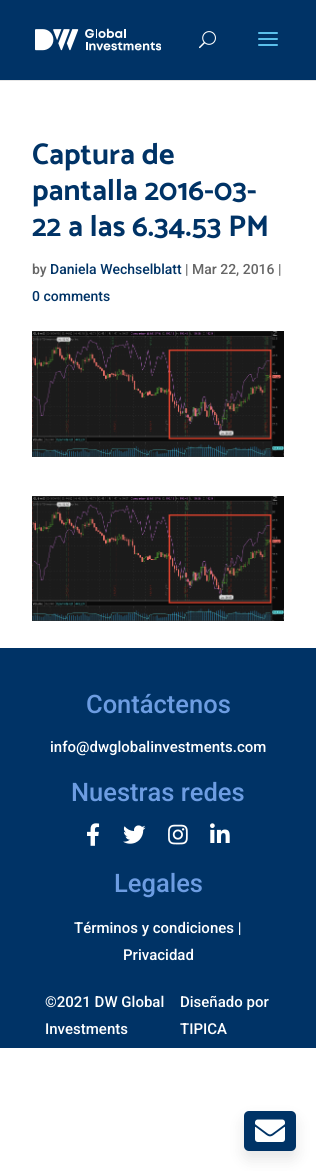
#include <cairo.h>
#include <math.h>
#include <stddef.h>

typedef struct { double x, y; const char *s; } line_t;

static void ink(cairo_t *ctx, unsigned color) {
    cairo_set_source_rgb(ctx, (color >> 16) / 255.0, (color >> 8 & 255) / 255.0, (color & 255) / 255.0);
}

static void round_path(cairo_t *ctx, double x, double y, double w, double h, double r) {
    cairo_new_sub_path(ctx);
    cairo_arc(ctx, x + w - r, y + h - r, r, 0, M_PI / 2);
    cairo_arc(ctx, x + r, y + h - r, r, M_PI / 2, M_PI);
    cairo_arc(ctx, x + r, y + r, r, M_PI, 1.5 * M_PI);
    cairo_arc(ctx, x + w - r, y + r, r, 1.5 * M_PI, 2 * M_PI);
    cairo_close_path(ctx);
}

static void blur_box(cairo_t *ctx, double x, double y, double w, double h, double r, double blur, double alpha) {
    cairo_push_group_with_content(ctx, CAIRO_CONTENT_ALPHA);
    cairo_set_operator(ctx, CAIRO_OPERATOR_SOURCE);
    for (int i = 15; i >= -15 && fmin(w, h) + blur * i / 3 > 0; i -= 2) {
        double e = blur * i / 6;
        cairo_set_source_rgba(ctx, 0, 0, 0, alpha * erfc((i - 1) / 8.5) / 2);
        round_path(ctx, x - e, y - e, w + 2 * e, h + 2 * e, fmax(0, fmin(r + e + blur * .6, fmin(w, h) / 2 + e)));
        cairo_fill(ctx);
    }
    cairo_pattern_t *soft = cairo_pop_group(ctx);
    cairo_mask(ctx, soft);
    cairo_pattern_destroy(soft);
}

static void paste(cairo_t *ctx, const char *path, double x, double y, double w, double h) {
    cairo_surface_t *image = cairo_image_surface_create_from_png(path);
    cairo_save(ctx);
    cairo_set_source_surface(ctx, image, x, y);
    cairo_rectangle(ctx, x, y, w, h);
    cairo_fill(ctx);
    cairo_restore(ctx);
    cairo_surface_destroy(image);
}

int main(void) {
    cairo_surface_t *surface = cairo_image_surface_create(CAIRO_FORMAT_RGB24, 316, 1171);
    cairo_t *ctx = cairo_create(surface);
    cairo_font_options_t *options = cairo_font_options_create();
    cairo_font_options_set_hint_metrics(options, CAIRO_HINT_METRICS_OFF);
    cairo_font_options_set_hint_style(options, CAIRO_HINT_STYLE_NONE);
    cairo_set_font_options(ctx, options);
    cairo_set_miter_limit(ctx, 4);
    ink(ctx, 0xFFFFFF);
    cairo_paint(ctx);
    ink(ctx, 0xE6E6E6);
    cairo_rectangle(ctx, 0, 80, 316, 1);
    cairo_fill(ctx);
    ink(ctx, 0x003366);
    cairo_rectangle(ctx, 0, 0, 316, 80);
    cairo_fill(ctx);
    paste(ctx, "media/1.png", 35, 28, 126, 23);
    paste(ctx, "media/2.png", 199, 31, 17, 18);
    paste(ctx, "media/3.png", 258, 32, 20, 14);
    cairo_select_font_face(ctx, "Catamaran", CAIRO_FONT_SLANT_NORMAL, CAIRO_FONT_WEIGHT_BOLD);
    cairo_set_font_size(ctx, 30);
    {
        static const line_t items[] = {
            {32, 164, "Captura de"},
            {32, 200, "pantalla 2016-03-"},
            {32, 236, "22 a las 6.34.53 PM"},
        };
        for (size_t i = 0; i < sizeof items / sizeof *items; i++) {
            cairo_move_to(ctx, items[i].x, items[i].y);
            cairo_show_text(ctx, items[i].s);
        }
    }
    cairo_select_font_face(ctx, "Roboto Medium", CAIRO_FONT_SLANT_NORMAL, CAIRO_FONT_WEIGHT_NORMAL);
    cairo_set_font_size(ctx, 14);
    ink(ctx, 0x666666);
    cairo_move_to(ctx, 32, 274);
    cairo_show_text(ctx, "by");
    ink(ctx, 0x003366);
    cairo_move_to(ctx, 50, 274);
    cairo_show_text(ctx, "Daniela Wechselblatt");
    ink(ctx, 0x666666);
    cairo_move_to(ctx, 185, 274);
    cairo_show_text(ctx, "| Mar 22, 2016 |");
    ink(ctx, 0x003366);
    cairo_move_to(ctx, 32, 301);
    cairo_show_text(ctx, "0 comments");
    paste(ctx, "media/4.png", 32, 331, 252, 126);
    paste(ctx, "media/5.png", 32, 496, 252, 125);
    cairo_rectangle(ctx, 0, 648, 316, 400);
    cairo_fill(ctx);
    cairo_set_font_size(ctx, 25.5);
    ink(ctx, 0x6D9DE2);
    cairo_move_to(ctx, 86, 713);
    cairo_show_text(ctx, "Contáctenos");
    cairo_set_font_size(ctx, 15);
    ink(ctx, 0xFFFFFF);
    cairo_move_to(ctx, 50, 752);
    cairo_show_text(ctx, "info@dwglobalinvestments.com");
    cairo_set_font_size(ctx, 25.5);
    ink(ctx, 0x6D9DE2);
    cairo_move_to(ctx, 71, 801);
    cairo_show_text(ctx, "Nuestras redes");
    paste(ctx, "media/6.png", 87, 823, 13, 23);
    paste(ctx, "media/7.png", 123, 825, 23, 19);
    paste(ctx, "media/8.png", 168, 824, 20, 21);
    paste(ctx, "media/9.png", 210, 823, 20, 20);
    cairo_move_to(ctx, 114, 892);
    cairo_show_text(ctx, "Legales");
    cairo_set_font_size(ctx, 15);
    ink(ctx, 0xFFFFFF);
    {
        static const line_t items[] = {
            {74, 933, "Términos y condiciones |"},
            {123, 960, "Privacidad"},
            {45, 1007, "©2021 DW Global"},
            {45, 1034, "Investments"},
            {180, 1007, "Diseñado por"},
            {180, 1034, "TIPICA"},
        };
        for (size_t i = 0; i < sizeof items / sizeof *items; i++) {
            cairo_move_to(ctx, items[i].x, items[i].y);
            cairo_show_text(ctx, items[i].s);
        }
    }
    ink(ctx, 0x000000);
    blur_box(ctx, 244, 1119, 52, 40, 5, 7.5, 0.1);
    ink(ctx, 0x003366);
    round_path(ctx, 244, 1111, 52, 40, 5);
    cairo_fill(ctx);
    paste(ctx, "media/10.png", 255, 1119, 30, 23);
    cairo_surface_write_to_png(surface, "image.png");
    cairo_font_options_destroy(options);
    cairo_destroy(ctx);
    cairo_surface_destroy(surface);
    return 0;
}
